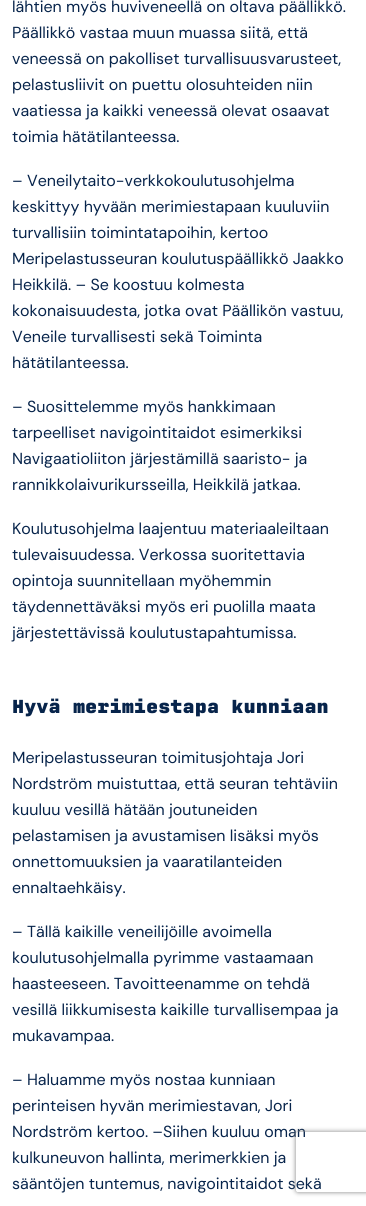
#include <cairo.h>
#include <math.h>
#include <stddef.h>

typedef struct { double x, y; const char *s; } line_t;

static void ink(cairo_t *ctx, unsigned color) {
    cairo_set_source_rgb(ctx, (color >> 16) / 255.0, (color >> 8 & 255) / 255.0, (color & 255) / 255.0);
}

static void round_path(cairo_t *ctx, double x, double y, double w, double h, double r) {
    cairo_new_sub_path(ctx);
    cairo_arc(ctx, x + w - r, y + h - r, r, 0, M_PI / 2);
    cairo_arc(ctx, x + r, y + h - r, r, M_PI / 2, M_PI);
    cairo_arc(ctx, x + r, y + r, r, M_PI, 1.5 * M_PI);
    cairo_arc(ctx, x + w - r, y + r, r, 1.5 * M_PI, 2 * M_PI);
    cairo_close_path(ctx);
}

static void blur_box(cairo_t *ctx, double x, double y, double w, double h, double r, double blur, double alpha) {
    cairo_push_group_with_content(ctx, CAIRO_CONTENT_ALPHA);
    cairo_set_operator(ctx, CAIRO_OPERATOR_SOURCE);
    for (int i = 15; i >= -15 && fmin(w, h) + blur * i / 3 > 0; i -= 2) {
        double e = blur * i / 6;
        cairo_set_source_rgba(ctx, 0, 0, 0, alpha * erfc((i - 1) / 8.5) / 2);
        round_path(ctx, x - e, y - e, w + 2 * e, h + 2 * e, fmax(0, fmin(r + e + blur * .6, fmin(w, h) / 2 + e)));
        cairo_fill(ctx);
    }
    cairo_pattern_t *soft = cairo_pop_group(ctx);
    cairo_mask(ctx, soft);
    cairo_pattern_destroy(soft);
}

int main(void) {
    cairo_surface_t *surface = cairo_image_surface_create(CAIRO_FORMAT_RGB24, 366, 1206);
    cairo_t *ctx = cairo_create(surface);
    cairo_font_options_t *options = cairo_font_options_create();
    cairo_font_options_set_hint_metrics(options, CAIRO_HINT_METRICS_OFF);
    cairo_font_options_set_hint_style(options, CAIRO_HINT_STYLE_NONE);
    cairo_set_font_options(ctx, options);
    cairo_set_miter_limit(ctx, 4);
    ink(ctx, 0xFFFFFF);
    cairo_paint(ctx);
    cairo_select_font_face(ctx, "DM Sans", CAIRO_FONT_SLANT_NORMAL, CAIRO_FONT_WEIGHT_NORMAL);
    cairo_set_font_size(ctx, 16);
    ink(ctx, 0x07244B);
    {
        static const line_t items[] = {
            {12, 12, "lähtien myös huviveneellä on oltava päällikkö."},
            {12, 38, "Päällikkö vastaa muun muassa siitä, että"},
            {12, 64, "veneessä on pakolliset turvallisuusvarusteet,"},
            {12, 90, "pelastusliivit on puettu olosuhteiden niin"},
            {12, 116, "vaatiessa ja kaikki veneessä olevat osaavat"},
            {12, 142, "toimia hätätilanteessa."},
            {12, 186, "– Veneilytaito-verkkokoulutusohjelma"},
            {12, 212, "keskittyy hyvään merimiestapaan kuuluviin"},
            {12, 238, "turvallisiin toimintatapoihin, kertoo"},
            {12, 264, "Meripelastusseuran koulutuspäällikkö Jaakko"},
            {12, 290, "Heikkilä. – Se koostuu kolmesta"},
            {12, 316, "kokonaisuudesta, jotka ovat Päällikön vastuu,"},
            {12, 342, "Veneile turvallisesti sekä Toiminta"},
            {12, 368, "hätätilanteessa."},
            {12, 412, "– Suosittelemme myös hankkimaan"},
            {12, 438, "tarpeelliset navigointitaidot esimerkiksi"},
            {12, 464, "Navigaatioliiton järjestämillä saaristo- ja"},
            {12, 490, "rannikkolaivurikursseilla, Heikkilä jatkaa."},
            {12, 534, "Koulutusohjelma laajentuu materiaaleiltaan"},
            {12, 560, "tulevaisuudessa. Verkossa suoritettavia"},
            {12, 586, "opintoja suunnitellaan myöhemmin"},
            {12, 612, "täydennettäväksi myös eri puolilla maata"},
            {12, 638, "järjestettävissä koulutustapahtumissa."},
        };
        for (size_t i = 0; i < sizeof items / sizeof *items; i++) {
            cairo_move_to(ctx, items[i].x, items[i].y);
            cairo_show_text(ctx, items[i].s);
        }
    }
    cairo_select_font_face(ctx, "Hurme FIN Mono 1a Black", CAIRO_FONT_SLANT_NORMAL, CAIRO_FONT_WEIGHT_NORMAL);
    cairo_set_font_size(ctx, 18.8);
    cairo_move_to(ctx, 12, 713);
    cairo_show_text(ctx, "Hyvä merimiestapa kunniaan");
    cairo_select_font_face(ctx, "DM Sans", CAIRO_FONT_SLANT_NORMAL, CAIRO_FONT_WEIGHT_NORMAL);
    cairo_set_font_size(ctx, 16);
    {
        static const line_t items[] = {
            {12, 763, "Meripelastusseuran toimitusjohtaja Jori"},
            {12, 789, "Nordström muistuttaa, että seuran tehtäviin"},
            {12, 815, "kuuluu vesillä hätään joutuneiden"},
            {12, 841, "pelastamisen ja avustamisen lisäksi myös"},
            {12, 867, "onnettomuuksien ja vaaratilanteiden"},
            {12, 893, "ennaltaehkäisy."},
            {12, 937, "– Tällä kaikille veneilijöille avoimella"},
            {12, 963, "koulutusohjelmalla pyrimme vastaamaan"},
            {12, 989, "haasteeseen. Tavoitteenamme on tehdä"},
            {12, 1015, "vesillä liikkumisesta kaikille turvallisempaa ja"},
            {12, 1041, "mukavampaa."},
            {12, 1085, "– Haluamme myös nostaa kunniaan"},
            {12, 1111, "perinteisen hyvän merimiestavan, Jori"},
            {12, 1137, "Nordström kertoo. –Siihen kuuluu oman"},
            {12, 1163, "kulkuneuvon hallinta, merimerkkien ja"},
            {12, 1189, "sääntöjen tuntemus, navigointitaidot sekä"},
        };
        for (size_t i = 0; i < sizeof items / sizeof *items; i++) {
            cairo_move_to(ctx, items[i].x, items[i].y);
            cairo_show_text(ctx, items[i].s);
        }
    }
    cairo_save(ctx);
    cairo_set_fill_rule(ctx, CAIRO_FILL_RULE_EVEN_ODD);
    cairo_new_path(ctx);
    cairo_move_to(ctx, 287, 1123);
    cairo_line_to(ctx, 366, 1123);
    cairo_line_to(ctx, 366, 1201);
    cairo_line_to(ctx, 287, 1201);
    cairo_close_path(ctx);
    cairo_move_to(ctx, 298, 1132);
    cairo_line_to(ctx, 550, 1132);
    cairo_curve_to(ctx, 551, 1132, 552, 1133, 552, 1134);
    cairo_line_to(ctx, 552, 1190);
    cairo_curve_to(ctx, 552, 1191, 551, 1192, 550, 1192);
    cairo_line_to(ctx, 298, 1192);
    cairo_curve_to(ctx, 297, 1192, 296, 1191, 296, 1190);
    cairo_line_to(ctx, 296, 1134);
    cairo_curve_to(ctx, 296, 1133, 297, 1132, 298, 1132);
    cairo_close_path(ctx);
    cairo_clip(ctx);
    ink(ctx, 0x808080);
    blur_box(ctx, 296, 1132, 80, 60, 2, 2.5, 1);
    cairo_restore(ctx);
    cairo_surface_write_to_png(surface, "image.png");
    cairo_font_options_destroy(options);
    cairo_destroy(ctx);
    cairo_surface_destroy(surface);
    return 0;
}
